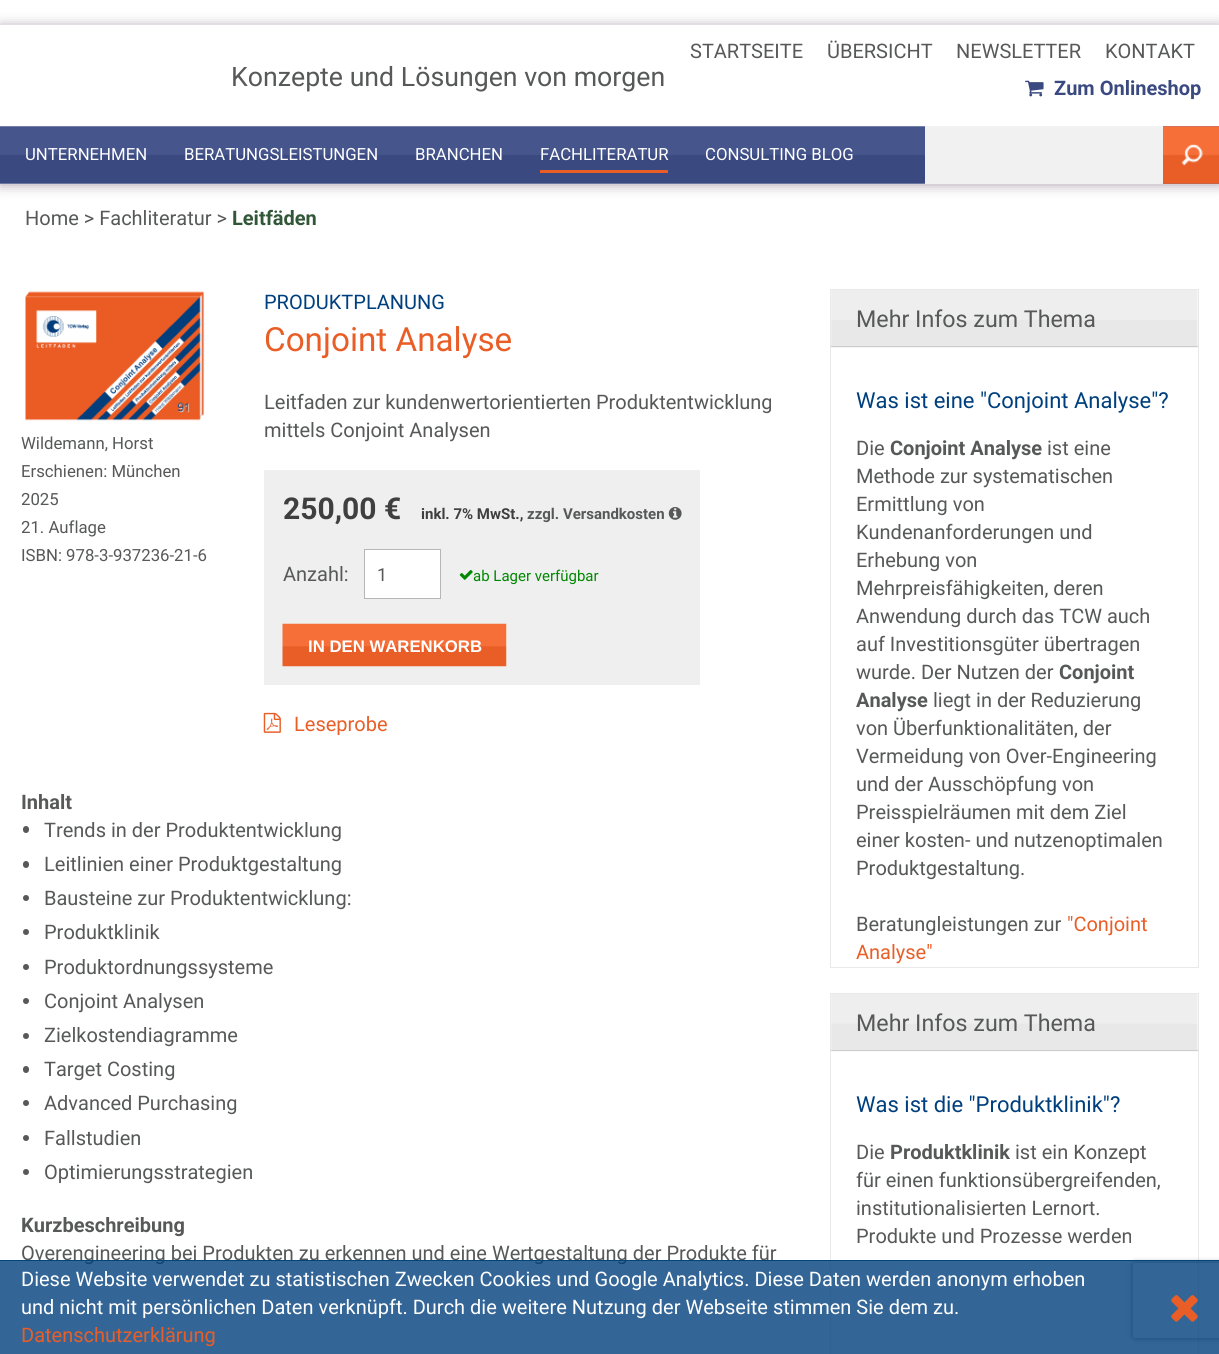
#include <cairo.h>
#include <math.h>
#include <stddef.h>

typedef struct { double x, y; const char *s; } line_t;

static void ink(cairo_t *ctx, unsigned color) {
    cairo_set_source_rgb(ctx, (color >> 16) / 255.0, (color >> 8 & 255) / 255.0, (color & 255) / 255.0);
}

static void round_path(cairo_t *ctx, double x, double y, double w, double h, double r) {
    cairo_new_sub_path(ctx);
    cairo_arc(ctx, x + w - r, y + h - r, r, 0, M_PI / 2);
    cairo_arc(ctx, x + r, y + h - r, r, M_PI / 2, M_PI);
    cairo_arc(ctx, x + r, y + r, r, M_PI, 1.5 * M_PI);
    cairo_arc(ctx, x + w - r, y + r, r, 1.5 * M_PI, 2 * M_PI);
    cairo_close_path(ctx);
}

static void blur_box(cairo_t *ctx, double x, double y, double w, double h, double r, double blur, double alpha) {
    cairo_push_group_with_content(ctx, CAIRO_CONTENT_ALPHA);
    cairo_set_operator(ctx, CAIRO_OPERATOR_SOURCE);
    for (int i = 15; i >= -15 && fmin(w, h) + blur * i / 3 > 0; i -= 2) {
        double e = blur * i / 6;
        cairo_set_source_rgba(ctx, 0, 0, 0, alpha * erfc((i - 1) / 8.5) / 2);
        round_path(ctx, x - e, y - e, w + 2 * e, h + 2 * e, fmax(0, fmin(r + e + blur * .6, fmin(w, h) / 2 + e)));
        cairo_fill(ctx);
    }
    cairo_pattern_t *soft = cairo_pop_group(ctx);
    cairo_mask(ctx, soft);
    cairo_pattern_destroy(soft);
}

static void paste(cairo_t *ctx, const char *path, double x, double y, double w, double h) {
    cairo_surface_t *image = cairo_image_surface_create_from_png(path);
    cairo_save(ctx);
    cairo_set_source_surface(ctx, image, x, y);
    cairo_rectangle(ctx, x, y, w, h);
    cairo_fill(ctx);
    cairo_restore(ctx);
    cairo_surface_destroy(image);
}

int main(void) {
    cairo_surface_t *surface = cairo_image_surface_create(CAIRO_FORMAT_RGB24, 1219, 1354);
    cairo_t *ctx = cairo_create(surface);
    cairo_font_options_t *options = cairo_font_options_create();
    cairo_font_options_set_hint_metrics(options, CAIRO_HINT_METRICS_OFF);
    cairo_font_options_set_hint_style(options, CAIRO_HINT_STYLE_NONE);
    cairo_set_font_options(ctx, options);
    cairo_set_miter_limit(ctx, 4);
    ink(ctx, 0xFFFFFF);
    cairo_paint(ctx);
    ink(ctx, 0xB0A2B0);
    blur_box(ctx, 0, 26, 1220, 159, 0, 6, 1);
    ink(ctx, 0xFFFFFF);
    cairo_rectangle(ctx, 0, 25, 1219, 159);
    cairo_fill(ctx);
    cairo_select_font_face(ctx, "Roboto", CAIRO_FONT_SLANT_NORMAL, CAIRO_FONT_WEIGHT_NORMAL);
    cairo_set_font_size(ctx, 20);
    ink(ctx, 0x575858);
    {
        static const line_t items[] = {
            {690, 58, "STARTSEITE"},
            {827, 58, "ÜBERSICHT"},
            {956, 58, "NEWSLETTER"},
            {1105, 58, "KONTAKT"},
        };
        for (size_t i = 0; i < sizeof items / sizeof *items; i++) {
            cairo_move_to(ctx, items[i].x, items[i].y);
            cairo_show_text(ctx, items[i].s);
        }
    }
    cairo_set_font_size(ctx, 26.7);
    cairo_move_to(ctx, 231, 86);
    cairo_show_text(ctx, "Konzepte und Lösungen von morgen");
    paste(ctx, "media/1.png", 1025, 80, 19, 17);
    cairo_select_font_face(ctx, "Roboto", CAIRO_FONT_SLANT_NORMAL, CAIRO_FONT_WEIGHT_BOLD);
    cairo_set_font_size(ctx, 20);
    ink(ctx, 0x3A4980);
    cairo_move_to(ctx, 1054, 95);
    cairo_show_text(ctx, "Zum Onlineshop");
    paste(ctx, "media/2.png", 0, 126, 1219, 58);
    cairo_select_font_face(ctx, "Roboto", CAIRO_FONT_SLANT_NORMAL, CAIRO_FONT_WEIGHT_NORMAL);
    cairo_set_font_size(ctx, 16.75);
    ink(ctx, 0xFFFFFF);
    {
        static const line_t items[] = {
            {25, 160, "UNTERNEHMEN"},
            {184, 160, "BERATUNGSLEISTUNGEN"},
            {415, 160, "BRANCHEN"},
        };
        for (size_t i = 0; i < sizeof items / sizeof *items; i++) {
            cairo_move_to(ctx, items[i].x, items[i].y);
            cairo_show_text(ctx, items[i].s);
        }
    }
    ink(ctx, 0xE95E27);
    cairo_rectangle(ctx, 540, 170, 128, 3);
    cairo_fill(ctx);
    ink(ctx, 0xFFFFFF);
    cairo_move_to(ctx, 540, 160);
    cairo_show_text(ctx, "FACHLITERATUR");
    cairo_move_to(ctx, 705, 160);
    cairo_show_text(ctx, "CONSULTING BLOG");
    ink(ctx, 0xF1F1F1);
    cairo_rectangle(ctx, 925, 126, 238, 58);
    cairo_fill(ctx);
    paste(ctx, "media/3.png", 1163, 126, 56, 58);
    cairo_set_font_size(ctx, 20);
    ink(ctx, 0x575858);
    cairo_move_to(ctx, 25, 225);
    cairo_show_text(ctx, "Home > Fachliteratur >");
    cairo_select_font_face(ctx, "Roboto", CAIRO_FONT_SLANT_NORMAL, CAIRO_FONT_WEIGHT_BOLD);
    ink(ctx, 0x325738);
    cairo_move_to(ctx, 232, 225);
    cairo_show_text(ctx, "Leitfäden");
    paste(ctx, "media/4.png", 25, 291, 180, 130);
    cairo_select_font_face(ctx, "Roboto", CAIRO_FONT_SLANT_NORMAL, CAIRO_FONT_WEIGHT_NORMAL);
    cairo_set_font_size(ctx, 16.75);
    ink(ctx, 0x575858);
    {
        static const line_t items[] = {
            {21, 449, "Wildemann, Horst"},
            {21, 477, "Erschienen: München"},
            {21, 505, "2025"},
            {21, 533, "21. Auflage"},
            {21, 561, "ISBN: 978-3-937236-21-6"},
        };
        for (size_t i = 0; i < sizeof items / sizeof *items; i++) {
            cairo_move_to(ctx, items[i].x, items[i].y);
            cairo_show_text(ctx, items[i].s);
        }
    }
    cairo_set_font_size(ctx, 20);
    ink(ctx, 0x003F7D);
    cairo_move_to(ctx, 264, 309);
    cairo_show_text(ctx, "PRODUKTPLANUNG");
    cairo_set_font_size(ctx, 33.25);
    ink(ctx, 0xE95E27);
    cairo_move_to(ctx, 264, 351);
    cairo_show_text(ctx, "Conjoint Analyse");
    cairo_set_font_size(ctx, 20);
    ink(ctx, 0x575858);
    cairo_move_to(ctx, 264, 409);
    cairo_show_text(ctx, "Leitfaden zur kundenwertorientierten Produktentwicklung");
    cairo_move_to(ctx, 264, 437);
    cairo_show_text(ctx, "mittels Conjoint Analysen");
    ink(ctx, 0xEFEFEF);
    cairo_rectangle(ctx, 264, 470, 436, 215);
    cairo_fill(ctx);
    cairo_select_font_face(ctx, "Roboto", CAIRO_FONT_SLANT_NORMAL, CAIRO_FONT_WEIGHT_BOLD);
    cairo_set_font_size(ctx, 30);
    ink(ctx, 0x3F3F3F);
    cairo_move_to(ctx, 283, 519);
    cairo_show_text(ctx, "250,00 €");
    cairo_set_font_size(ctx, 15);
    cairo_move_to(ctx, 421, 519);
    cairo_show_text(ctx, "inkl. 7% MwSt.,");
    ink(ctx, 0x575858);
    cairo_move_to(ctx, 527, 519);
    cairo_show_text(ctx, "zzgl. Versandkosten");
    paste(ctx, "media/5.png", 668, 507, 14, 13);
    cairo_select_font_face(ctx, "Roboto", CAIRO_FONT_SLANT_NORMAL, CAIRO_FONT_WEIGHT_NORMAL);
    cairo_set_font_size(ctx, 20);
    cairo_move_to(ctx, 283, 581);
    cairo_show_text(ctx, "Anzahl:");
    ink(ctx, 0xFFFFFF);
    cairo_rectangle(ctx, 364.5, 549.5, 76, 49);
    cairo_fill_preserve(ctx);
    ink(ctx, 0xB6B6B6);
    cairo_set_line_width(ctx, 1);
    cairo_stroke(ctx);
    cairo_set_font_size(ctx, 18);
    ink(ctx, 0x575858);
    cairo_move_to(ctx, 377, 581);
    cairo_show_text(ctx, "1");
    paste(ctx, "media/6.png", 459, 570, 14, 10);
    cairo_set_font_size(ctx, 15);
    ink(ctx, 0x008800);
    cairo_move_to(ctx, 473, 581);
    cairo_show_text(ctx, "ab Lager verfügbar");
    paste(ctx, "media/7.png", 282, 623, 225, 44);
    cairo_select_font_face(ctx, "Liberation Sans", CAIRO_FONT_SLANT_NORMAL, CAIRO_FONT_WEIGHT_BOLD);
    cairo_set_font_size(ctx, 16.75);
    ink(ctx, 0xFFFFFF);
    cairo_move_to(ctx, 308, 652);
    cairo_show_text(ctx, "IN DEN WARENKORB");
    paste(ctx, "media/8.png", 263, 712, 18, 21);
    cairo_select_font_face(ctx, "Roboto", CAIRO_FONT_SLANT_NORMAL, CAIRO_FONT_WEIGHT_NORMAL);
    cairo_set_font_size(ctx, 20);
    ink(ctx, 0xE95E27);
    cairo_move_to(ctx, 294, 731);
    cairo_show_text(ctx, "Leseprobe");
    cairo_select_font_face(ctx, "Roboto", CAIRO_FONT_SLANT_NORMAL, CAIRO_FONT_WEIGHT_BOLD);
    ink(ctx, 0x575858);
    cairo_move_to(ctx, 21, 809);
    cairo_show_text(ctx, "Inhalt");
    round_path(ctx, 23, 826, 6, 7, 3);
    cairo_fill(ctx);
    cairo_select_font_face(ctx, "Roboto", CAIRO_FONT_SLANT_NORMAL, CAIRO_FONT_WEIGHT_NORMAL);
    cairo_move_to(ctx, 44, 837);
    cairo_show_text(ctx, "Trends in der Produktentwicklung");
    round_path(ctx, 23, 861, 6, 7, 3);
    cairo_fill(ctx);
    cairo_move_to(ctx, 44, 871);
    cairo_show_text(ctx, "Leitlinien einer Produktgestaltung");
    cairo_new_path(ctx);
    cairo_arc(ctx, 26, 898, 3, 0, 2 * M_PI);
    cairo_fill(ctx);
    cairo_move_to(ctx, 44, 905);
    cairo_show_text(ctx, "Bausteine zur Produktentwicklung:");
    cairo_new_path(ctx);
    cairo_arc(ctx, 26, 932, 3, 0, 2 * M_PI);
    cairo_fill(ctx);
    cairo_move_to(ctx, 44, 939);
    cairo_show_text(ctx, "Produktklinik");
    cairo_new_path(ctx);
    cairo_arc(ctx, 26, 967, 3, 0, 2 * M_PI);
    cairo_fill(ctx);
    cairo_move_to(ctx, 44, 974);
    cairo_show_text(ctx, "Produktordnungssysteme");
    cairo_new_path(ctx);
    cairo_arc(ctx, 26, 1001, 3, 0, 2 * M_PI);
    cairo_fill(ctx);
    cairo_move_to(ctx, 44, 1008);
    cairo_show_text(ctx, "Conjoint Analysen");
    cairo_new_path(ctx);
    cairo_arc(ctx, 26, 1036, 3, 0, 2 * M_PI);
    cairo_fill(ctx);
    cairo_move_to(ctx, 44, 1042);
    cairo_show_text(ctx, "Zielkostendiagramme");
    round_path(ctx, 23, 1066, 6, 7, 3);
    cairo_fill(ctx);
    cairo_move_to(ctx, 44, 1076);
    cairo_show_text(ctx, "Target Costing");
    cairo_new_path(ctx);
    cairo_arc(ctx, 26, 1103, 3, 0, 2 * M_PI);
    cairo_fill(ctx);
    cairo_move_to(ctx, 44, 1110);
    cairo_show_text(ctx, "Advanced Purchasing");
    cairo_new_path(ctx);
    cairo_arc(ctx, 26, 1138, 3, 0, 2 * M_PI);
    cairo_fill(ctx);
    cairo_move_to(ctx, 44, 1145);
    cairo_show_text(ctx, "Fallstudien");
    cairo_new_path(ctx);
    cairo_arc(ctx, 26, 1172, 3, 0, 2 * M_PI);
    cairo_fill(ctx);
    cairo_move_to(ctx, 44, 1179);
    cairo_show_text(ctx, "Optimierungsstrategien");
    cairo_select_font_face(ctx, "Roboto", CAIRO_FONT_SLANT_NORMAL, CAIRO_FONT_WEIGHT_BOLD);
    cairo_move_to(ctx, 21, 1232);
    cairo_show_text(ctx, "Kurzbeschreibung");
    cairo_select_font_face(ctx, "Roboto", CAIRO_FONT_SLANT_NORMAL, CAIRO_FONT_WEIGHT_NORMAL);
    cairo_move_to(ctx, 21, 1260);
    cairo_show_text(ctx, "Overengineering bei Produkten zu erkennen und eine Wertgestaltung der Produkte für");
    cairo_rectangle(ctx, 830.5, 289.5, 368, 678);
    ink(ctx, 0xE9E9E9);
    cairo_stroke(ctx);
    paste(ctx, "media/9.png", 831, 290, 367, 58);
    ink(ctx, 0xCCCCCC);
    cairo_rectangle(ctx, 831, 346, 367, 1);
    cairo_fill(ctx);
    cairo_set_font_size(ctx, 23.25);
    ink(ctx, 0x575858);
    cairo_move_to(ctx, 856, 327);
    cairo_show_text(ctx, "Mehr Infos zum Thema");
    cairo_set_font_size(ctx, 22);
    ink(ctx, 0x003F7D);
    cairo_move_to(ctx, 856, 408);
    cairo_show_text(ctx, "Was ist eine \"Conjoint Analyse\"?");
    cairo_set_font_size(ctx, 20);
    ink(ctx, 0x575858);
    cairo_move_to(ctx, 856, 455);
    cairo_show_text(ctx, "Die");
    cairo_select_font_face(ctx, "Roboto", CAIRO_FONT_SLANT_NORMAL, CAIRO_FONT_WEIGHT_BOLD);
    cairo_move_to(ctx, 890, 455);
    cairo_show_text(ctx, "Conjoint Analyse");
    cairo_select_font_face(ctx, "Roboto", CAIRO_FONT_SLANT_NORMAL, CAIRO_FONT_WEIGHT_NORMAL);
    {
        static const line_t items[] = {
            {1047, 455, "ist eine"},
            {856, 483, "Methode zur systematischen"},
            {856, 511, "Ermittlung von"},
            {856, 539, "Kundenanforderungen und"},
            {856, 567, "Erhebung von"},
            {856, 595, "Mehrpreisfähigkeiten, deren"},
            {856, 623, "Anwendung durch das TCW auch"},
            {856, 651, "auf Investitionsgüter übertragen"},
            {856, 679, "wurde. Der Nutzen der"},
        };
        for (size_t i = 0; i < sizeof items / sizeof *items; i++) {
            cairo_move_to(ctx, items[i].x, items[i].y);
            cairo_show_text(ctx, items[i].s);
        }
    }
    cairo_select_font_face(ctx, "Roboto", CAIRO_FONT_SLANT_NORMAL, CAIRO_FONT_WEIGHT_BOLD);
    cairo_move_to(ctx, 1059, 679);
    cairo_show_text(ctx, "Conjoint");
    cairo_move_to(ctx, 856, 707);
    cairo_show_text(ctx, "Analyse");
    cairo_select_font_face(ctx, "Roboto", CAIRO_FONT_SLANT_NORMAL, CAIRO_FONT_WEIGHT_NORMAL);
    {
        static const line_t items[] = {
            {933, 707, "liegt in der Reduzierung"},
            {856, 735, "von Überfunktionalitäten, der"},
            {856, 763, "Vermeidung von Over-Engineering"},
            {856, 791, "und der Ausschöpfung von"},
            {856, 819, "Preisspielräumen mit dem Ziel"},
            {856, 847, "einer kosten- und nutzenoptimalen"},
            {856, 875, "Produktgestaltung."},
            {856, 931, "Beratungleistungen zur"},
        };
        for (size_t i = 0; i < sizeof items / sizeof *items; i++) {
            cairo_move_to(ctx, items[i].x, items[i].y);
            cairo_show_text(ctx, items[i].s);
        }
    }
    ink(ctx, 0xE95E27);
    cairo_move_to(ctx, 1067, 931);
    cairo_show_text(ctx, "\"Conjoint");
    cairo_move_to(ctx, 856, 959);
    cairo_show_text(ctx, "Analyse\"");
    cairo_rectangle(ctx, 830.5, 993.5, 368, 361);
    ink(ctx, 0xE9E9E9);
    cairo_stroke(ctx);
    paste(ctx, "media/10.png", 831, 994, 367, 58);
    ink(ctx, 0xCCCCCC);
    cairo_rectangle(ctx, 831, 1050, 367, 1);
    cairo_fill(ctx);
    cairo_set_font_size(ctx, 23.25);
    ink(ctx, 0x575858);
    cairo_move_to(ctx, 856, 1031);
    cairo_show_text(ctx, "Mehr Infos zum Thema");
    cairo_set_font_size(ctx, 22);
    ink(ctx, 0x003F7D);
    cairo_move_to(ctx, 856, 1112);
    cairo_show_text(ctx, "Was ist die \"Produktklinik\"?");
    cairo_set_font_size(ctx, 20);
    ink(ctx, 0x575858);
    cairo_move_to(ctx, 856, 1159);
    cairo_show_text(ctx, "Die");
    cairo_select_font_face(ctx, "Roboto", CAIRO_FONT_SLANT_NORMAL, CAIRO_FONT_WEIGHT_BOLD);
    cairo_move_to(ctx, 890, 1159);
    cairo_show_text(ctx, "Produktklinik");
    cairo_select_font_face(ctx, "Roboto", CAIRO_FONT_SLANT_NORMAL, CAIRO_FONT_WEIGHT_NORMAL);
    {
        static const line_t items[] = {
            {1015, 1159, "ist ein Konzept"},
            {856, 1187, "für einen funktionsübergreifenden,"},
            {856, 1215, "institutionalisierten Lernort."},
            {856, 1243, "Produkte und Prozesse werden"},
        };
        for (size_t i = 0; i < sizeof items / sizeof *items; i++) {
            cairo_move_to(ctx, items[i].x, items[i].y);
            cairo_show_text(ctx, items[i].s);
        }
    }
    cairo_save(ctx);
    cairo_set_fill_rule(ctx, CAIRO_FILL_RULE_EVEN_ODD);
    cairo_new_path(ctx);
    cairo_move_to(ctx, 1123, 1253);
    cairo_line_to(ctx, 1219, 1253);
    cairo_line_to(ctx, 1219, 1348);
    cairo_line_to(ctx, 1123, 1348);
    cairo_close_path(ctx);
    cairo_move_to(ctx, 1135.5, 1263);
    cairo_line_to(ctx, 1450.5, 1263);
    cairo_curve_to(ctx, 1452, 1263, 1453, 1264, 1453, 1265.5);
    cairo_line_to(ctx, 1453, 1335.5);
    cairo_curve_to(ctx, 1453, 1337, 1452, 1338, 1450.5, 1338);
    cairo_line_to(ctx, 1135.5, 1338);
    cairo_curve_to(ctx, 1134, 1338, 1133, 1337, 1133, 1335.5);
    cairo_line_to(ctx, 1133, 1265.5);
    cairo_curve_to(ctx, 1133, 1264, 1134, 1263, 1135.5, 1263);
    cairo_close_path(ctx);
    cairo_clip(ctx);
    ink(ctx, 0x808080);
    blur_box(ctx, 1133, 1263, 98, 75, 2.5, 3, 1);
    cairo_restore(ctx);
    cairo_set_source_rgba(ctx, 0, 0.247, 0.49, 0.8);
    cairo_rectangle(ctx, 0, 1261, 1219, 93);
    cairo_fill(ctx);
    ink(ctx, 0x004579);
    cairo_rectangle(ctx, 0, 1260, 1219, 1);
    cairo_fill(ctx);
    ink(ctx, 0xFFFFFF);
    cairo_move_to(ctx, 21, 1286);
    cairo_show_text(ctx, "Diese Website verwendet zu statistischen Zwecken Cookies und Google Analytics. Diese Daten werden anonym erhoben");
    cairo_move_to(ctx, 21, 1314);
    cairo_show_text(ctx, "und nicht mit persönlichen Daten verknüpft. Durch die weitere Nutzung der Webseite stimmen Sie dem zu.");
    ink(ctx, 0xE95E27);
    cairo_move_to(ctx, 21, 1342);
    cairo_show_text(ctx, "Datenschutzerklärung");
    paste(ctx, "media/11.png", 1171, 1295, 27, 27);
    cairo_surface_write_to_png(surface, "image.png");
    cairo_font_options_destroy(options);
    cairo_destroy(ctx);
    cairo_surface_destroy(surface);
    return 0;
}
